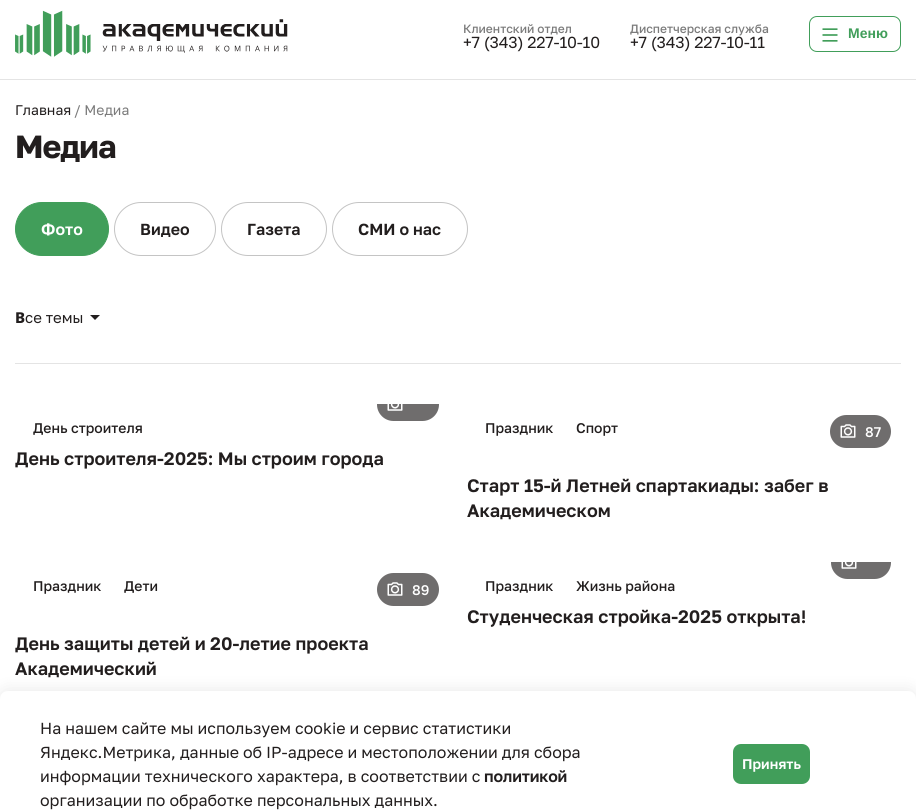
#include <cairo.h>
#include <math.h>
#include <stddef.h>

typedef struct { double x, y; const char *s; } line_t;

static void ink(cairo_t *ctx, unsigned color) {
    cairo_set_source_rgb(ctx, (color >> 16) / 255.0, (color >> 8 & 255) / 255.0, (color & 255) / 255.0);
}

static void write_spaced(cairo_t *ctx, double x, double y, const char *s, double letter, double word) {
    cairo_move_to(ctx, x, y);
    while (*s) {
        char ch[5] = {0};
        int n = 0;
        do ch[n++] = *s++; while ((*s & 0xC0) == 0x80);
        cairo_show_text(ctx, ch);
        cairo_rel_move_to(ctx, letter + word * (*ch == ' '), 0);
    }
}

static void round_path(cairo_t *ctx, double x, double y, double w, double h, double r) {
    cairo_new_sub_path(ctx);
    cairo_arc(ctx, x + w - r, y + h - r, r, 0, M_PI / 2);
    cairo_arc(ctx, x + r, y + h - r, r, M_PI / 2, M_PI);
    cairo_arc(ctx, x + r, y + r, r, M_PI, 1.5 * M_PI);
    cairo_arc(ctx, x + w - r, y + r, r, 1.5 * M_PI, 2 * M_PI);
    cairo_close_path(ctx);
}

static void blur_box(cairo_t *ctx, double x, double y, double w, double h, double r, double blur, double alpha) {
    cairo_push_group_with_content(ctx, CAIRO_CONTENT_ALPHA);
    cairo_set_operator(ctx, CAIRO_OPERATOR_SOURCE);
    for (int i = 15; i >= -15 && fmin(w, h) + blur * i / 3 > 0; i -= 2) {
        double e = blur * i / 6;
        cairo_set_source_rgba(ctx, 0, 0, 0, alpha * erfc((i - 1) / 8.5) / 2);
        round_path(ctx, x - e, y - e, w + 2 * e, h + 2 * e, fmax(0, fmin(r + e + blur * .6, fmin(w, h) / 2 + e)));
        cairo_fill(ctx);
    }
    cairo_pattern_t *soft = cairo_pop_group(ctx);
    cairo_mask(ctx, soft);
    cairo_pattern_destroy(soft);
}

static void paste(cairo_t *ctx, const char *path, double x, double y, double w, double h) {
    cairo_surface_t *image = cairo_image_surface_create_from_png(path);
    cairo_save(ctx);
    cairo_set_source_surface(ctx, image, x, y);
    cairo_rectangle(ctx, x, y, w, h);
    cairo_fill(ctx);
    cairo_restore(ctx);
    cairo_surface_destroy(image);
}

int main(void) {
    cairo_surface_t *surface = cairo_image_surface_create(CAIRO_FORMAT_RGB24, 916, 812);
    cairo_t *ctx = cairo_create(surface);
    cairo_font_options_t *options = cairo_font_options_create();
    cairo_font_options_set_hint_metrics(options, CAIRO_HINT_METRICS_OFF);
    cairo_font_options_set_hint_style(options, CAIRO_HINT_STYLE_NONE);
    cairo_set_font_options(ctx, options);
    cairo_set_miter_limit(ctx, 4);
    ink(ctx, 0xFFFFFF);
    cairo_paint(ctx);
    ink(ctx, 0xE4E4E4);
    cairo_rectangle(ctx, 0, 79, 916, 1);
    cairo_fill(ctx);
    paste(ctx, "media/1.png", 15, 10, 273, 47);
    cairo_select_font_face(ctx, "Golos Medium", CAIRO_FONT_SLANT_NORMAL, CAIRO_FONT_WEIGHT_NORMAL);
    cairo_set_font_size(ctx, 12);
    ink(ctx, 0x7B7B7B);
    cairo_move_to(ctx, 463, 33);
    cairo_show_text(ctx, "Клиентский отдел");
    cairo_select_font_face(ctx, "Golos", CAIRO_FONT_SLANT_NORMAL, CAIRO_FONT_WEIGHT_NORMAL);
    cairo_set_font_size(ctx, 16);
    ink(ctx, 0x221E1E);
    write_spaced(ctx, 463, 48, "+7 (343) 227-10-10", -0.2, 0);
    cairo_select_font_face(ctx, "Golos Medium", CAIRO_FONT_SLANT_NORMAL, CAIRO_FONT_WEIGHT_NORMAL);
    cairo_set_font_size(ctx, 12);
    ink(ctx, 0x7B7B7B);
    cairo_move_to(ctx, 630, 33);
    cairo_show_text(ctx, "Диспетчерская служба");
    cairo_select_font_face(ctx, "Golos", CAIRO_FONT_SLANT_NORMAL, CAIRO_FONT_WEIGHT_NORMAL);
    cairo_set_font_size(ctx, 16);
    ink(ctx, 0x221E1E);
    write_spaced(ctx, 630, 48, "+7 (343) 227-10-11", -0.2, 0);
    paste(ctx, "media/2.png", 822, 28, 16, 14);
    round_path(ctx, 809.5, 16.5, 91, 35, 7.5);
    ink(ctx, 0x419E5A);
    cairo_set_line_width(ctx, 1);
    cairo_stroke(ctx);
    cairo_select_font_face(ctx, "Liberation Sans", CAIRO_FONT_SLANT_NORMAL, CAIRO_FONT_WEIGHT_BOLD);
    cairo_set_font_size(ctx, 14);
    cairo_move_to(ctx, 848, 38);
    cairo_show_text(ctx, "Меню");
    cairo_select_font_face(ctx, "Golos", CAIRO_FONT_SLANT_NORMAL, CAIRO_FONT_WEIGHT_NORMAL);
    ink(ctx, 0x221E1E);
    cairo_move_to(ctx, 15, 115);
    cairo_show_text(ctx, "Главная");
    ink(ctx, 0x7B7B7B);
    cairo_move_to(ctx, 74, 115);
    cairo_show_text(ctx, "/ Медиа");
    cairo_select_font_face(ctx, "Golos", CAIRO_FONT_SLANT_NORMAL, CAIRO_FONT_WEIGHT_BOLD);
    cairo_set_font_size(ctx, 32);
    ink(ctx, 0x221E1E);
    write_spaced(ctx, 15, 158, "Медиа", -1, 0);
    ink(ctx, 0x419E5A);
    round_path(ctx, 15.5, 202.5, 93, 53, 26.5);
    cairo_fill_preserve(ctx);
    cairo_stroke(ctx);
    cairo_select_font_face(ctx, "Golos SemiBold", CAIRO_FONT_SLANT_NORMAL, CAIRO_FONT_WEIGHT_NORMAL);
    cairo_set_font_size(ctx, 16);
    ink(ctx, 0xFFFFFF);
    cairo_move_to(ctx, 41, 235);
    cairo_show_text(ctx, "Фото");
    round_path(ctx, 114.5, 202.5, 101, 53, 26.5);
    ink(ctx, 0xC4C4C4);
    cairo_stroke(ctx);
    ink(ctx, 0x221E1E);
    cairo_move_to(ctx, 140, 235);
    cairo_show_text(ctx, "Видео");
    round_path(ctx, 221.5, 202.5, 105, 53, 26.5);
    ink(ctx, 0xC4C4C4);
    cairo_stroke(ctx);
    ink(ctx, 0x221E1E);
    cairo_move_to(ctx, 247, 235);
    cairo_show_text(ctx, "Газета");
    round_path(ctx, 332.5, 202.5, 135, 53, 26.5);
    ink(ctx, 0xC4C4C4);
    cairo_stroke(ctx);
    ink(ctx, 0x221E1E);
    cairo_move_to(ctx, 358, 235);
    cairo_show_text(ctx, "СМИ о нас");
    ink(ctx, 0xE4E4E4);
    cairo_rectangle(ctx, 15, 363, 886, 1);
    cairo_fill(ctx);
    cairo_select_font_face(ctx, "Noto Sans ExtraBold", CAIRO_FONT_SLANT_NORMAL, CAIRO_FONT_WEIGHT_NORMAL);
    cairo_set_font_size(ctx, 15);
    ink(ctx, 0x221E1E);
    cairo_move_to(ctx, 15, 323);
    cairo_show_text(ctx, "В");
    cairo_select_font_face(ctx, "Golos", CAIRO_FONT_SLANT_NORMAL, CAIRO_FONT_WEIGHT_NORMAL);
    cairo_move_to(ctx, 25, 323);
    cairo_show_text(ctx, "се темы");
    cairo_new_path(ctx);
    cairo_move_to(ctx, 95, 320);
    cairo_line_to(ctx, 90, 315);
    cairo_line_to(ctx, 100, 315);
    cairo_close_path(ctx);
    cairo_fill(ctx);
    cairo_save(ctx);
    round_path(ctx, 15, 404, 434, 27, 8);
    cairo_clip(ctx);
    ink(ctx, 0x6F6D6D);
    round_path(ctx, 377, 388, 62, 33, 16.5);
    cairo_fill(ctx);
    cairo_restore(ctx);
    paste(ctx, "media/3.png", 387, 404, 16, 7);
    cairo_select_font_face(ctx, "Golos Medium", CAIRO_FONT_SLANT_NORMAL, CAIRO_FONT_WEIGHT_NORMAL);
    cairo_set_font_size(ctx, 14);
    cairo_move_to(ctx, 33, 433);
    cairo_show_text(ctx, "День строителя");
    cairo_select_font_face(ctx, "Golos SemiBold", CAIRO_FONT_SLANT_NORMAL, CAIRO_FONT_WEIGHT_NORMAL);
    cairo_set_font_size(ctx, 18);
    cairo_move_to(ctx, 15, 465);
    cairo_show_text(ctx, "День строителя-2025: Мы строим города");
    cairo_select_font_face(ctx, "Golos Medium", CAIRO_FONT_SLANT_NORMAL, CAIRO_FONT_WEIGHT_NORMAL);
    cairo_set_font_size(ctx, 14);
    cairo_move_to(ctx, 485, 433);
    cairo_show_text(ctx, "Праздник");
    cairo_move_to(ctx, 576, 433);
    cairo_show_text(ctx, "Спорт");
    ink(ctx, 0x6F6D6D);
    round_path(ctx, 830, 415, 61, 33, 16.5);
    cairo_fill(ctx);
    paste(ctx, "media/4.png", 840, 424, 16, 14);
    ink(ctx, 0xFFFFFF);
    cairo_move_to(ctx, 865, 437);
    cairo_show_text(ctx, "87");
    cairo_select_font_face(ctx, "Golos SemiBold", CAIRO_FONT_SLANT_NORMAL, CAIRO_FONT_WEIGHT_NORMAL);
    cairo_set_font_size(ctx, 18);
    ink(ctx, 0x221E1E);
    cairo_move_to(ctx, 467, 492);
    cairo_show_text(ctx, "Старт 15-й Летней спартакиады: забег в");
    cairo_move_to(ctx, 467, 517);
    cairo_show_text(ctx, "Академическом");
    cairo_select_font_face(ctx, "Golos Medium", CAIRO_FONT_SLANT_NORMAL, CAIRO_FONT_WEIGHT_NORMAL);
    cairo_set_font_size(ctx, 14);
    cairo_move_to(ctx, 33, 591);
    cairo_show_text(ctx, "Праздник");
    cairo_move_to(ctx, 124, 591);
    cairo_show_text(ctx, "Дети");
    ink(ctx, 0x6F6D6D);
    round_path(ctx, 377, 573, 62, 33, 16.5);
    cairo_fill(ctx);
    paste(ctx, "media/4.png", 387, 582, 16, 14);
    ink(ctx, 0xFFFFFF);
    cairo_move_to(ctx, 412, 595);
    cairo_show_text(ctx, "89");
    cairo_select_font_face(ctx, "Golos SemiBold", CAIRO_FONT_SLANT_NORMAL, CAIRO_FONT_WEIGHT_NORMAL);
    cairo_set_font_size(ctx, 18);
    ink(ctx, 0x221E1E);
    cairo_move_to(ctx, 15, 650);
    cairo_show_text(ctx, "День защиты детей и 20-летие проекта");
    cairo_move_to(ctx, 15, 675);
    cairo_show_text(ctx, "Академический");
    cairo_save(ctx);
    round_path(ctx, 467, 562, 434, 27, 8);
    cairo_clip(ctx);
    ink(ctx, 0x6F6D6D);
    round_path(ctx, 831, 546, 60, 33, 16.5);
    cairo_fill(ctx);
    cairo_restore(ctx);
    paste(ctx, "media/3.png", 841, 562, 16, 7);
    cairo_select_font_face(ctx, "Golos Medium", CAIRO_FONT_SLANT_NORMAL, CAIRO_FONT_WEIGHT_NORMAL);
    cairo_set_font_size(ctx, 14);
    cairo_move_to(ctx, 485, 591);
    cairo_show_text(ctx, "Праздник");
    cairo_move_to(ctx, 576, 591);
    cairo_show_text(ctx, "Жизнь района");
    cairo_select_font_face(ctx, "Golos SemiBold", CAIRO_FONT_SLANT_NORMAL, CAIRO_FONT_WEIGHT_NORMAL);
    cairo_set_font_size(ctx, 18);
    cairo_move_to(ctx, 467, 623);
    cairo_show_text(ctx, "Студенческая стройка-2025 открыта!");
    ink(ctx, 0x000000);
    blur_box(ctx, 0, 691, 916, 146, 8, 8, 0.1);
    ink(ctx, 0xFFFFFF);
    cairo_new_path(ctx);
    cairo_move_to(ctx, 8, 691);
    cairo_line_to(ctx, 908, 691);
    cairo_curve_to(ctx, 912.5, 691, 916, 694.5, 916, 699);
    cairo_line_to(ctx, 916, 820);
    cairo_line_to(ctx, 0, 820);
    cairo_line_to(ctx, 0, 699);
    cairo_curve_to(ctx, 0, 694.5, 3.5, 691, 8, 691);
    cairo_close_path(ctx);
    cairo_fill(ctx);
    cairo_select_font_face(ctx, "Golos", CAIRO_FONT_SLANT_NORMAL, CAIRO_FONT_WEIGHT_NORMAL);
    cairo_set_font_size(ctx, 16);
    ink(ctx, 0x221E1E);
    {
        static const line_t items[] = {
            {40, 734, "На нашем сайте мы используем cookie и сервис статистики"},
            {40, 758, "Яндекс.Метрика, данные об IP-адресе и местоположении для сбора"},
            {40, 782, "информации технического характера, в соответствии с"},
        };
        for (size_t i = 0; i < sizeof items / sizeof *items; i++) {
            cairo_move_to(ctx, items[i].x, items[i].y);
            cairo_show_text(ctx, items[i].s);
        }
    }
    cairo_select_font_face(ctx, "Golos SemiBold", CAIRO_FONT_SLANT_NORMAL, CAIRO_FONT_WEIGHT_NORMAL);
    write_spaced(ctx, 484, 782, "политикой", -0.2, 0);
    cairo_select_font_face(ctx, "Golos", CAIRO_FONT_SLANT_NORMAL, CAIRO_FONT_WEIGHT_NORMAL);
    cairo_move_to(ctx, 40, 806);
    cairo_show_text(ctx, "организации по обработке персональных данных.");
    ink(ctx, 0x419E5A);
    round_path(ctx, 733, 744, 77, 40, 8);
    cairo_fill(ctx);
    cairo_select_font_face(ctx, "Golos SemiBold", CAIRO_FONT_SLANT_NORMAL, CAIRO_FONT_WEIGHT_NORMAL);
    cairo_set_font_size(ctx, 14);
    ink(ctx, 0xFFFFFF);
    cairo_move_to(ctx, 742, 769);
    cairo_show_text(ctx, "Принять");
    cairo_surface_write_to_png(surface, "image.png");
    cairo_font_options_destroy(options);
    cairo_destroy(ctx);
    cairo_surface_destroy(surface);
    return 0;
}
